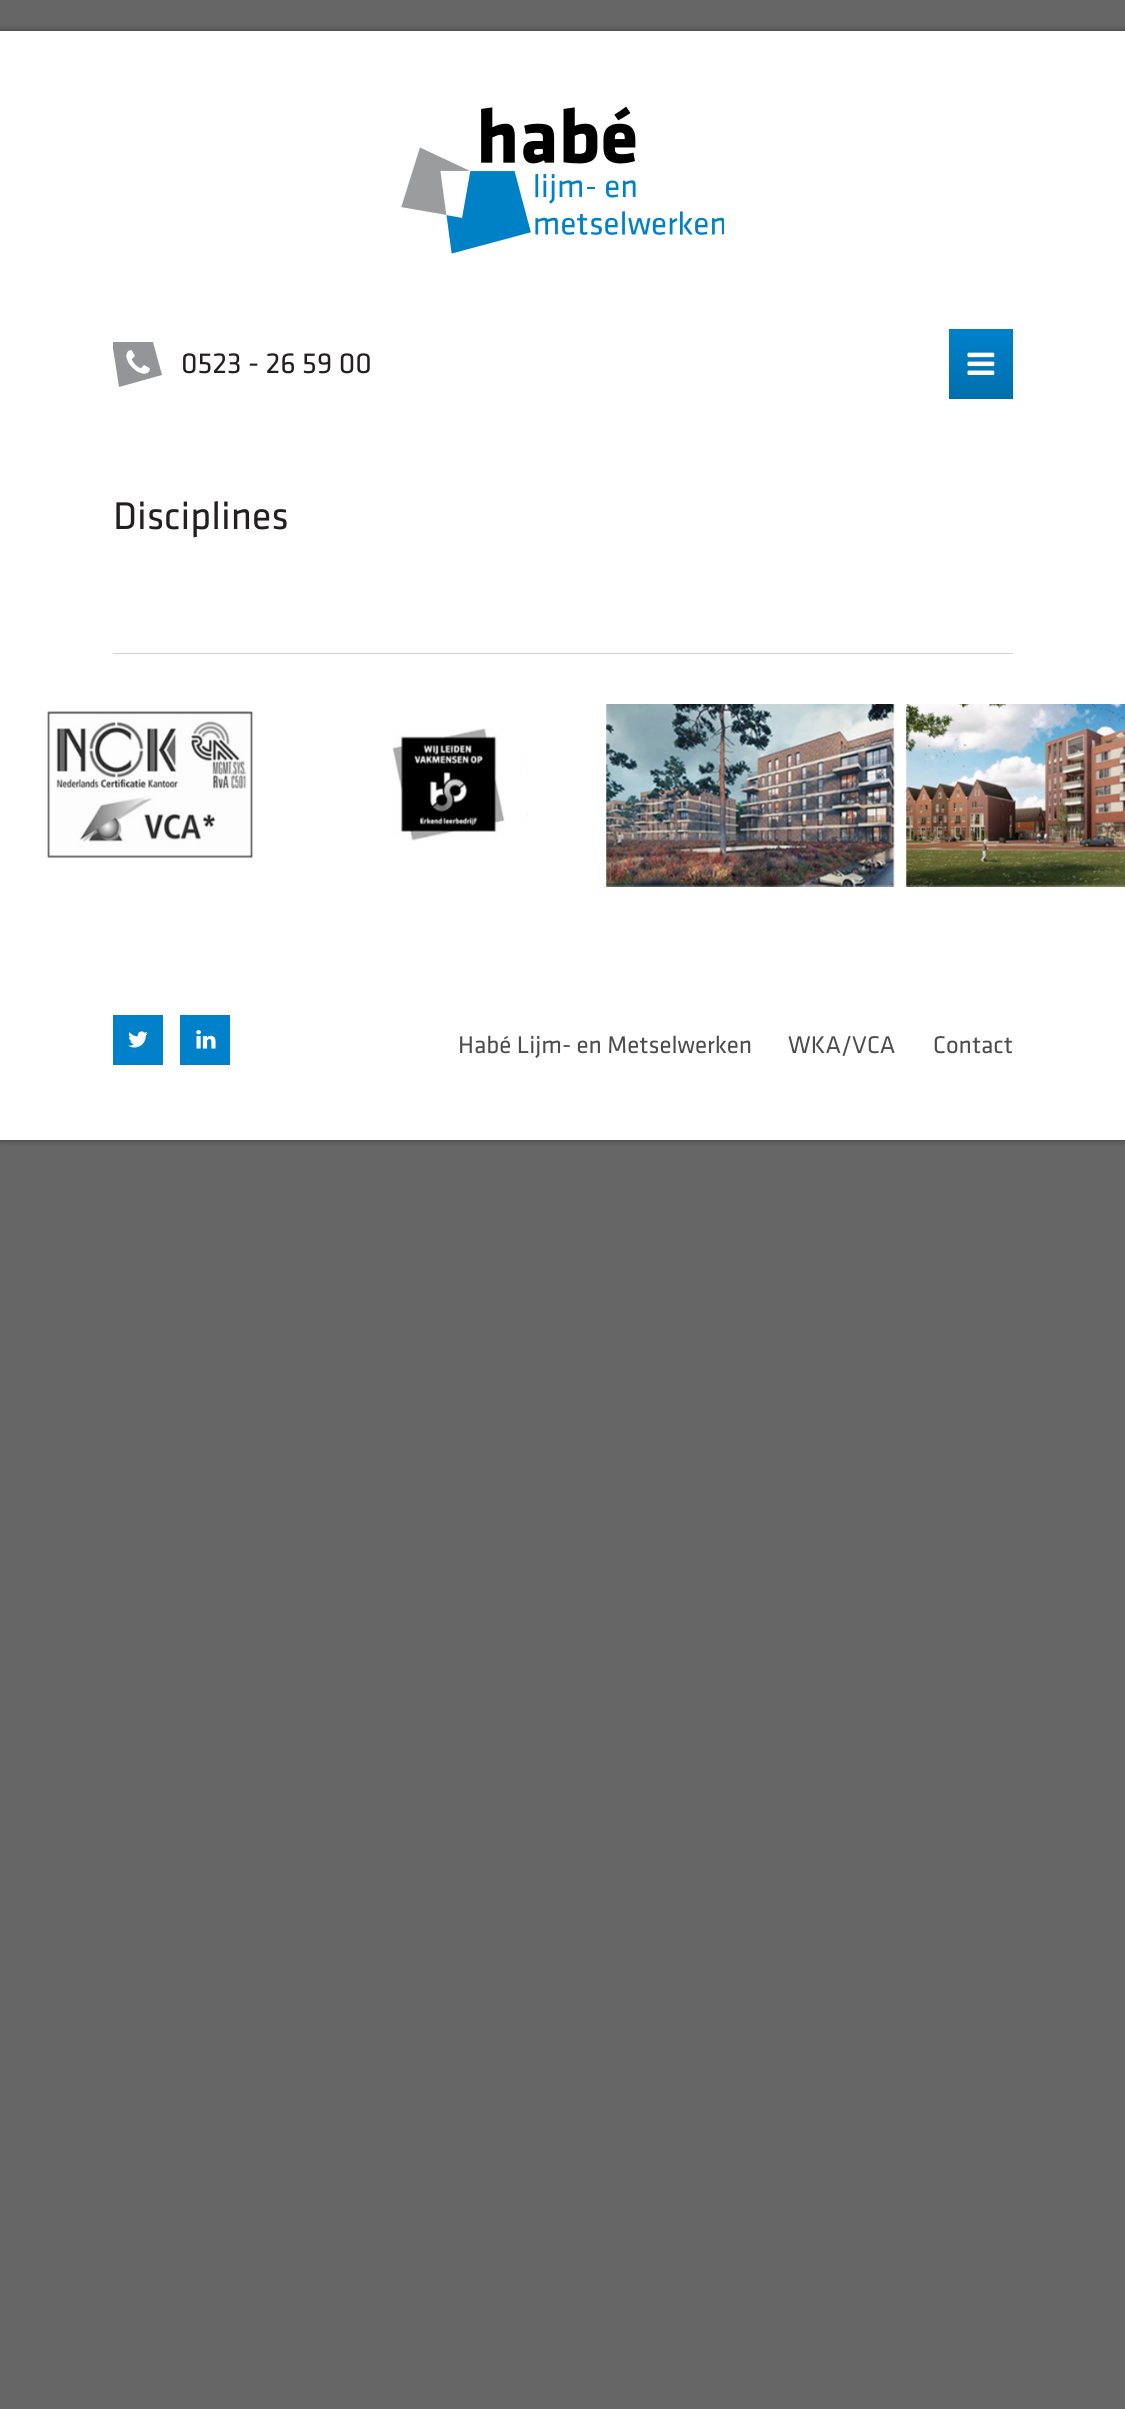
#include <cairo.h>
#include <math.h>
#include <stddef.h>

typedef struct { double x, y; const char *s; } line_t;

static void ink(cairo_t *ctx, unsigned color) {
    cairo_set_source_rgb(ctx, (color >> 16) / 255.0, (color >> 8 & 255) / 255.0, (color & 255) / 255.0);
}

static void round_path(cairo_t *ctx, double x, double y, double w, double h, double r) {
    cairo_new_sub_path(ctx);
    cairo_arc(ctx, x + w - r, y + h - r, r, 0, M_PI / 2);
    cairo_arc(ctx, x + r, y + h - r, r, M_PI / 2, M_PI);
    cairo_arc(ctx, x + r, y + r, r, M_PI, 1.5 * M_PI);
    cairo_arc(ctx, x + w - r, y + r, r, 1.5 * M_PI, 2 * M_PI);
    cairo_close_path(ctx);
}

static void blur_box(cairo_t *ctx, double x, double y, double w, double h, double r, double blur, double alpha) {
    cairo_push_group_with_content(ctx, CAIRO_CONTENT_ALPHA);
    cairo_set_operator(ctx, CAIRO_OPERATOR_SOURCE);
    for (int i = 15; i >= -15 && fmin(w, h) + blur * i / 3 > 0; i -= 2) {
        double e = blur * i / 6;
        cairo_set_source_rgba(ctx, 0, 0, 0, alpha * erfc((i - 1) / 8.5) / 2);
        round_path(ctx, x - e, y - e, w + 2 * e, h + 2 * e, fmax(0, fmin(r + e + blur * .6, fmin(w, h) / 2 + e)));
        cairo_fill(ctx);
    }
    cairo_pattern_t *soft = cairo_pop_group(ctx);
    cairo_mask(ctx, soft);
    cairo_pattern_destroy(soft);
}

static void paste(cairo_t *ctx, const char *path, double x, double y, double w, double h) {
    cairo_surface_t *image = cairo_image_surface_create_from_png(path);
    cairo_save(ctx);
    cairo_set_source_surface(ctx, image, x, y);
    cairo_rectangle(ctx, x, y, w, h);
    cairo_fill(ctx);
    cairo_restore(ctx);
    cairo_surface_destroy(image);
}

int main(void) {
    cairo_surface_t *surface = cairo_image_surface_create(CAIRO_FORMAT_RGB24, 1125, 2409);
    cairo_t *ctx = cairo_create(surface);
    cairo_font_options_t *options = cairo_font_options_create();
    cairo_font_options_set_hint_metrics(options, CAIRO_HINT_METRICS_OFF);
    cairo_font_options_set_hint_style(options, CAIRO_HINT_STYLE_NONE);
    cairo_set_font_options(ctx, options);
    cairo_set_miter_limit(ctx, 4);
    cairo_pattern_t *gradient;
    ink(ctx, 0x666666);
    cairo_paint(ctx);
    ink(ctx, 0x000705);
    blur_box(ctx, 0, 31, 1125, 1109, 0, 3, 0.5);
    ink(ctx, 0xFFFFFF);
    cairo_rectangle(ctx, 0, 31, 1125, 1109);
    cairo_fill(ctx);
    paste(ctx, "media/1.png", 401, 106, 323, 148);
    cairo_save(ctx);
    cairo_rectangle(ctx, 113, 341, 50, 47);
    cairo_clip(ctx);
    ink(ctx, 0x939598);
    cairo_new_path(ctx);
    cairo_move_to(ctx, 112, 342);
    cairo_line_to(ctx, 119, 387);
    cairo_line_to(ctx, 162, 375);
    cairo_line_to(ctx, 153, 342);
    cairo_fill(ctx);
    cairo_restore(ctx);
    paste(ctx, "media/2.png", 126, 350, 24, 24);
    cairo_select_font_face(ctx, "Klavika", CAIRO_FONT_SLANT_NORMAL, CAIRO_FONT_WEIGHT_NORMAL);
    cairo_set_font_size(ctx, 30);
    ink(ctx, 0x231F20);
    cairo_move_to(ctx, 181, 373);
    cairo_show_text(ctx, "0523 - 26 59 00");
    gradient = cairo_pattern_create_linear(981, 329, 981, 399);
    cairo_pattern_add_color_stop_rgba(gradient, 0, 0, 0.506, 0.788, 1);
    cairo_pattern_add_color_stop_rgba(gradient, 1, 0, 0.435, 0.686, 1);
    cairo_set_source(ctx, gradient);
    cairo_pattern_destroy(gradient);
    cairo_rectangle(ctx, 949, 329, 64, 70);
    cairo_fill(ctx);
    paste(ctx, "media/3.png", 967, 352, 28, 23);
    cairo_set_font_size(ctx, 40);
    ink(ctx, 0x231F20);
    cairo_move_to(ctx, 113, 529);
    cairo_show_text(ctx, "Disciplines");
    ink(ctx, 0xD2D2D2);
    cairo_rectangle(ctx, 113, 653, 900, 1);
    cairo_fill(ctx);
    paste(ctx, "media/4.png", 47, 711, 207, 147);
    paste(ctx, "media/5.png", 392, 728, 136, 113);
    paste(ctx, "media/6.png", 606, 704, 289, 183);
    paste(ctx, "media/7.png", 906, 704, 219, 183);
    ink(ctx, 0x0081C9);
    cairo_rectangle(ctx, 113, 1015, 50, 50);
    cairo_fill(ctx);
    paste(ctx, "media/8.png", 128, 1031, 20, 17);
    cairo_rectangle(ctx, 180, 1015, 50, 50);
    cairo_fill(ctx);
    paste(ctx, "media/9.png", 196, 1030, 20, 19);
    cairo_set_font_size(ctx, 25);
    ink(ctx, 0x4C4C4C);
    {
        static const line_t items[] = {
            {458, 1053, "Habé Lijm- en Metselwerken"},
            {788, 1053, "WKA/VCA"},
            {933, 1053, "Contact"},
        };
        for (size_t i = 0; i < sizeof items / sizeof *items; i++) {
            cairo_move_to(ctx, items[i].x, items[i].y);
            cairo_show_text(ctx, items[i].s);
        }
    }
    cairo_surface_write_to_png(surface, "image.png");
    cairo_font_options_destroy(options);
    cairo_destroy(ctx);
    cairo_surface_destroy(surface);
    return 0;
}
